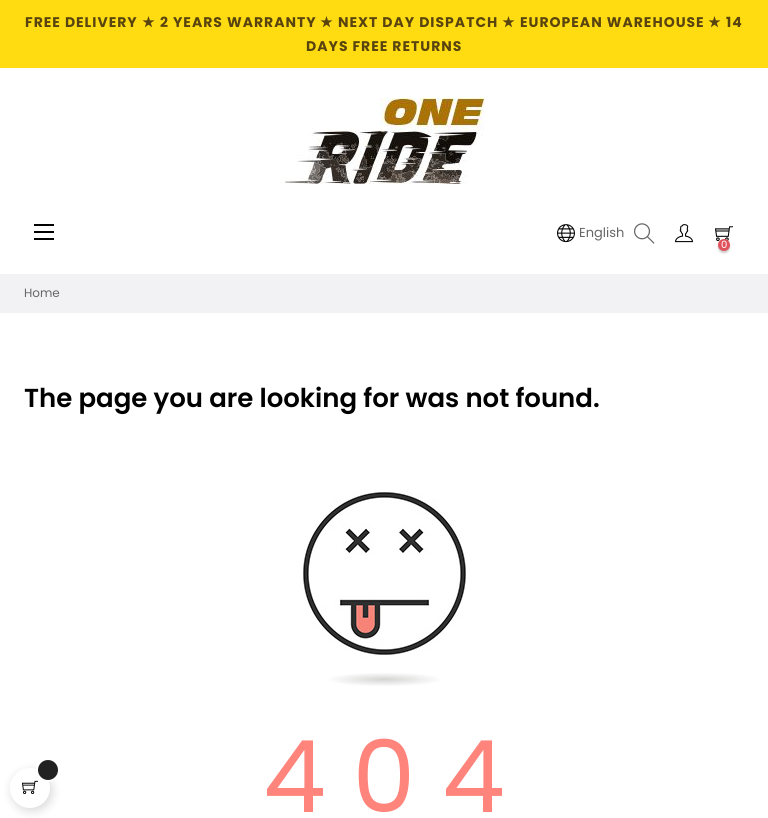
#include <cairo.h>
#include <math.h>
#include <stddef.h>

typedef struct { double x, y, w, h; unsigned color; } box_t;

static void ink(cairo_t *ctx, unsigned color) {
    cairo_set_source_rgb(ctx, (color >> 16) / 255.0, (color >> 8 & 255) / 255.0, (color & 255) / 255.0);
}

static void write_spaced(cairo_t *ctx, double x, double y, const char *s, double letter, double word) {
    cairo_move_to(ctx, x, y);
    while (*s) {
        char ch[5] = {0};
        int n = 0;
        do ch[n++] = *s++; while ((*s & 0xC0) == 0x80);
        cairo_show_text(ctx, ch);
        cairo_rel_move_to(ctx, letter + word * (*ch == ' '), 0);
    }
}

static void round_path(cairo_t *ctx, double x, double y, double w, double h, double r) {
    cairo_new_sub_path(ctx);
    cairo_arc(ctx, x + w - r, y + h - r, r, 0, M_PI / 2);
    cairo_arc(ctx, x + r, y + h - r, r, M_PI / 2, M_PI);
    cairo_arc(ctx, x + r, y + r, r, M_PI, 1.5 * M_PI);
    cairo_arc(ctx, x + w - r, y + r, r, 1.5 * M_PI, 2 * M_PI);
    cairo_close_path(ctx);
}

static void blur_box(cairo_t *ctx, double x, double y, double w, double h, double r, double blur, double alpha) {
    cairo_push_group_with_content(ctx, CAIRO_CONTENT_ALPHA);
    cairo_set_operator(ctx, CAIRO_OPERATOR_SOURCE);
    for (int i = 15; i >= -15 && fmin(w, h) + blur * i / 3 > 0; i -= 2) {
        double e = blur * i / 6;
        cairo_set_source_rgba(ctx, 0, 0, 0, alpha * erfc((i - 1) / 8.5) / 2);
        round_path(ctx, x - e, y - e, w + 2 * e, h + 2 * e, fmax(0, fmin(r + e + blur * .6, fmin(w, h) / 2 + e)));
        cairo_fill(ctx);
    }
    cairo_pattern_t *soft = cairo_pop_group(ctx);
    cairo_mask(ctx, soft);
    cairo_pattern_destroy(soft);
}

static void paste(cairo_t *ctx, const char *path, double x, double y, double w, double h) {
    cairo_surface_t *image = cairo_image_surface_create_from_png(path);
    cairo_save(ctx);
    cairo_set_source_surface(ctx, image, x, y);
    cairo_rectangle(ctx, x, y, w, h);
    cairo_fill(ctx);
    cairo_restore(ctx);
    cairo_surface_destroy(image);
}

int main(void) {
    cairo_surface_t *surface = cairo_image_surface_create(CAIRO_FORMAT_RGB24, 768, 818);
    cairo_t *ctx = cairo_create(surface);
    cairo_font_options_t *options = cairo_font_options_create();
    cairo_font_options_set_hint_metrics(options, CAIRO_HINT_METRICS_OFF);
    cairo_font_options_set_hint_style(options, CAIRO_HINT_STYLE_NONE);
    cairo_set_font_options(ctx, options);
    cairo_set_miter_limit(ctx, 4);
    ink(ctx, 0xFFFFFF);
    cairo_paint(ctx);
    ink(ctx, 0xFEDC11);
    cairo_rectangle(ctx, 0, 0, 768, 68);
    cairo_fill(ctx);
    cairo_select_font_face(ctx, "Poppins", CAIRO_FONT_SLANT_NORMAL, CAIRO_FONT_WEIGHT_BOLD);
    cairo_set_font_size(ctx, 14);
    ink(ctx, 0x59440F);
    write_spaced(ctx, 25, 27, "FREE DELIVERY", 1, 0);
    cairo_select_font_face(ctx, "DejaVu Sans", CAIRO_FONT_SLANT_NORMAL, CAIRO_FONT_WEIGHT_BOLD);
    write_spaced(ctx, 142, 27, "★", 1, 0);
    cairo_select_font_face(ctx, "Poppins", CAIRO_FONT_SLANT_NORMAL, CAIRO_FONT_WEIGHT_BOLD);
    write_spaced(ctx, 160, 27, "2 YEARS WARRANTY", 1, 0);
    cairo_select_font_face(ctx, "DejaVu Sans", CAIRO_FONT_SLANT_NORMAL, CAIRO_FONT_WEIGHT_BOLD);
    write_spaced(ctx, 320, 27, "★", 1, 0);
    cairo_select_font_face(ctx, "Poppins", CAIRO_FONT_SLANT_NORMAL, CAIRO_FONT_WEIGHT_BOLD);
    write_spaced(ctx, 338, 27, "NEXT DAY DISPATCH", 1, 0);
    cairo_select_font_face(ctx, "DejaVu Sans", CAIRO_FONT_SLANT_NORMAL, CAIRO_FONT_WEIGHT_BOLD);
    write_spaced(ctx, 502, 27, "★", 1, 0);
    cairo_select_font_face(ctx, "Poppins", CAIRO_FONT_SLANT_NORMAL, CAIRO_FONT_WEIGHT_BOLD);
    write_spaced(ctx, 520, 27, "EUROPEAN WAREHOUSE", 1, 0);
    cairo_select_font_face(ctx, "DejaVu Sans", CAIRO_FONT_SLANT_NORMAL, CAIRO_FONT_WEIGHT_BOLD);
    write_spaced(ctx, 708, 27, "★", 1, 0);
    cairo_select_font_face(ctx, "Poppins", CAIRO_FONT_SLANT_NORMAL, CAIRO_FONT_WEIGHT_BOLD);
    write_spaced(ctx, 726, 27, "14", 1, 0);
    write_spaced(ctx, 306, 51, "DAYS FREE RETURNS", 1, 0);
    paste(ctx, "media/1.png", 284, 98, 201, 86);
    {
        static const box_t items[] = {
            {34, 224, 20, 2, 0x000000},
            {34, 238, 20, 2, 0x000000},
            {34, 231, 20, 2, 0x000000},
        };
        for (size_t i = 0; i < sizeof items / sizeof *items; i++) {
            ink(ctx, items[i].color);
            cairo_rectangle(ctx, items[i].x, items[i].y, items[i].w, items[i].h);
            cairo_fill(ctx);
        }
    }
    paste(ctx, "media/2.png", 557, 224, 18, 19);
    cairo_select_font_face(ctx, "Poppins", CAIRO_FONT_SLANT_NORMAL, CAIRO_FONT_WEIGHT_NORMAL);
    cairo_set_font_size(ctx, 13);
    ink(ctx, 0x666666);
    cairo_move_to(ctx, 579, 237);
    cairo_show_text(ctx, "English");
    paste(ctx, "media/3.png", 634, 223, 21, 21);
    paste(ctx, "media/4.png", 675, 224, 18, 19);
    paste(ctx, "media/5.png", 715, 226, 18, 15);
    ink(ctx, 0x000000);
    blur_box(ctx, 718, 241, 12, 12, 6, 1, 0.2);
    ink(ctx, 0xE0525C);
    cairo_arc(ctx, 724, 245, 6, 0, 2 * M_PI);
    cairo_fill(ctx);
    cairo_set_font_size(ctx, 10);
    ink(ctx, 0xFFFFFF);
    cairo_move_to(ctx, 721, 248);
    cairo_show_text(ctx, "0");
    ink(ctx, 0xF2F2F4);
    cairo_rectangle(ctx, 0, 274, 768, 39);
    cairo_fill(ctx);
    cairo_set_font_size(ctx, 12);
    ink(ctx, 0x666666);
    cairo_move_to(ctx, 24, 297);
    cairo_show_text(ctx, "Home");
    cairo_select_font_face(ctx, "Poppins SemiBold", CAIRO_FONT_SLANT_NORMAL, CAIRO_FONT_WEIGHT_NORMAL);
    cairo_set_font_size(ctx, 26);
    ink(ctx, 0x000000);
    cairo_move_to(ctx, 24, 407);
    cairo_show_text(ctx, "The page you are looking for was not found.");
    paste(ctx, "media/6.png", 303, 491, 163, 195);
    cairo_select_font_face(ctx, "Poppins", CAIRO_FONT_SLANT_NORMAL, CAIRO_FONT_WEIGHT_NORMAL);
    cairo_set_font_size(ctx, 100);
    ink(ctx, 0xFF847B);
    cairo_move_to(ctx, 263, 812);
    cairo_show_text(ctx, "4 0 4");
    ink(ctx, 0x000000);
    blur_box(ctx, 12, 771, 40, 40, 20, 5, 0.15);
    ink(ctx, 0xFFFFFF);
    cairo_arc(ctx, 30, 788, 20, 0, 2 * M_PI);
    cairo_fill(ctx);
    paste(ctx, "media/7.png", 22, 780, 16, 14);
    cairo_arc(ctx, 48, 770, 11, 0, 2 * M_PI);
    cairo_stroke(ctx);
    ink(ctx, 0x222222);
    cairo_arc(ctx, 48, 770, 10, 0, 2 * M_PI);
    cairo_fill(ctx);
    cairo_surface_write_to_png(surface, "image.png");
    cairo_font_options_destroy(options);
    cairo_destroy(ctx);
    cairo_surface_destroy(surface);
    return 0;
}
